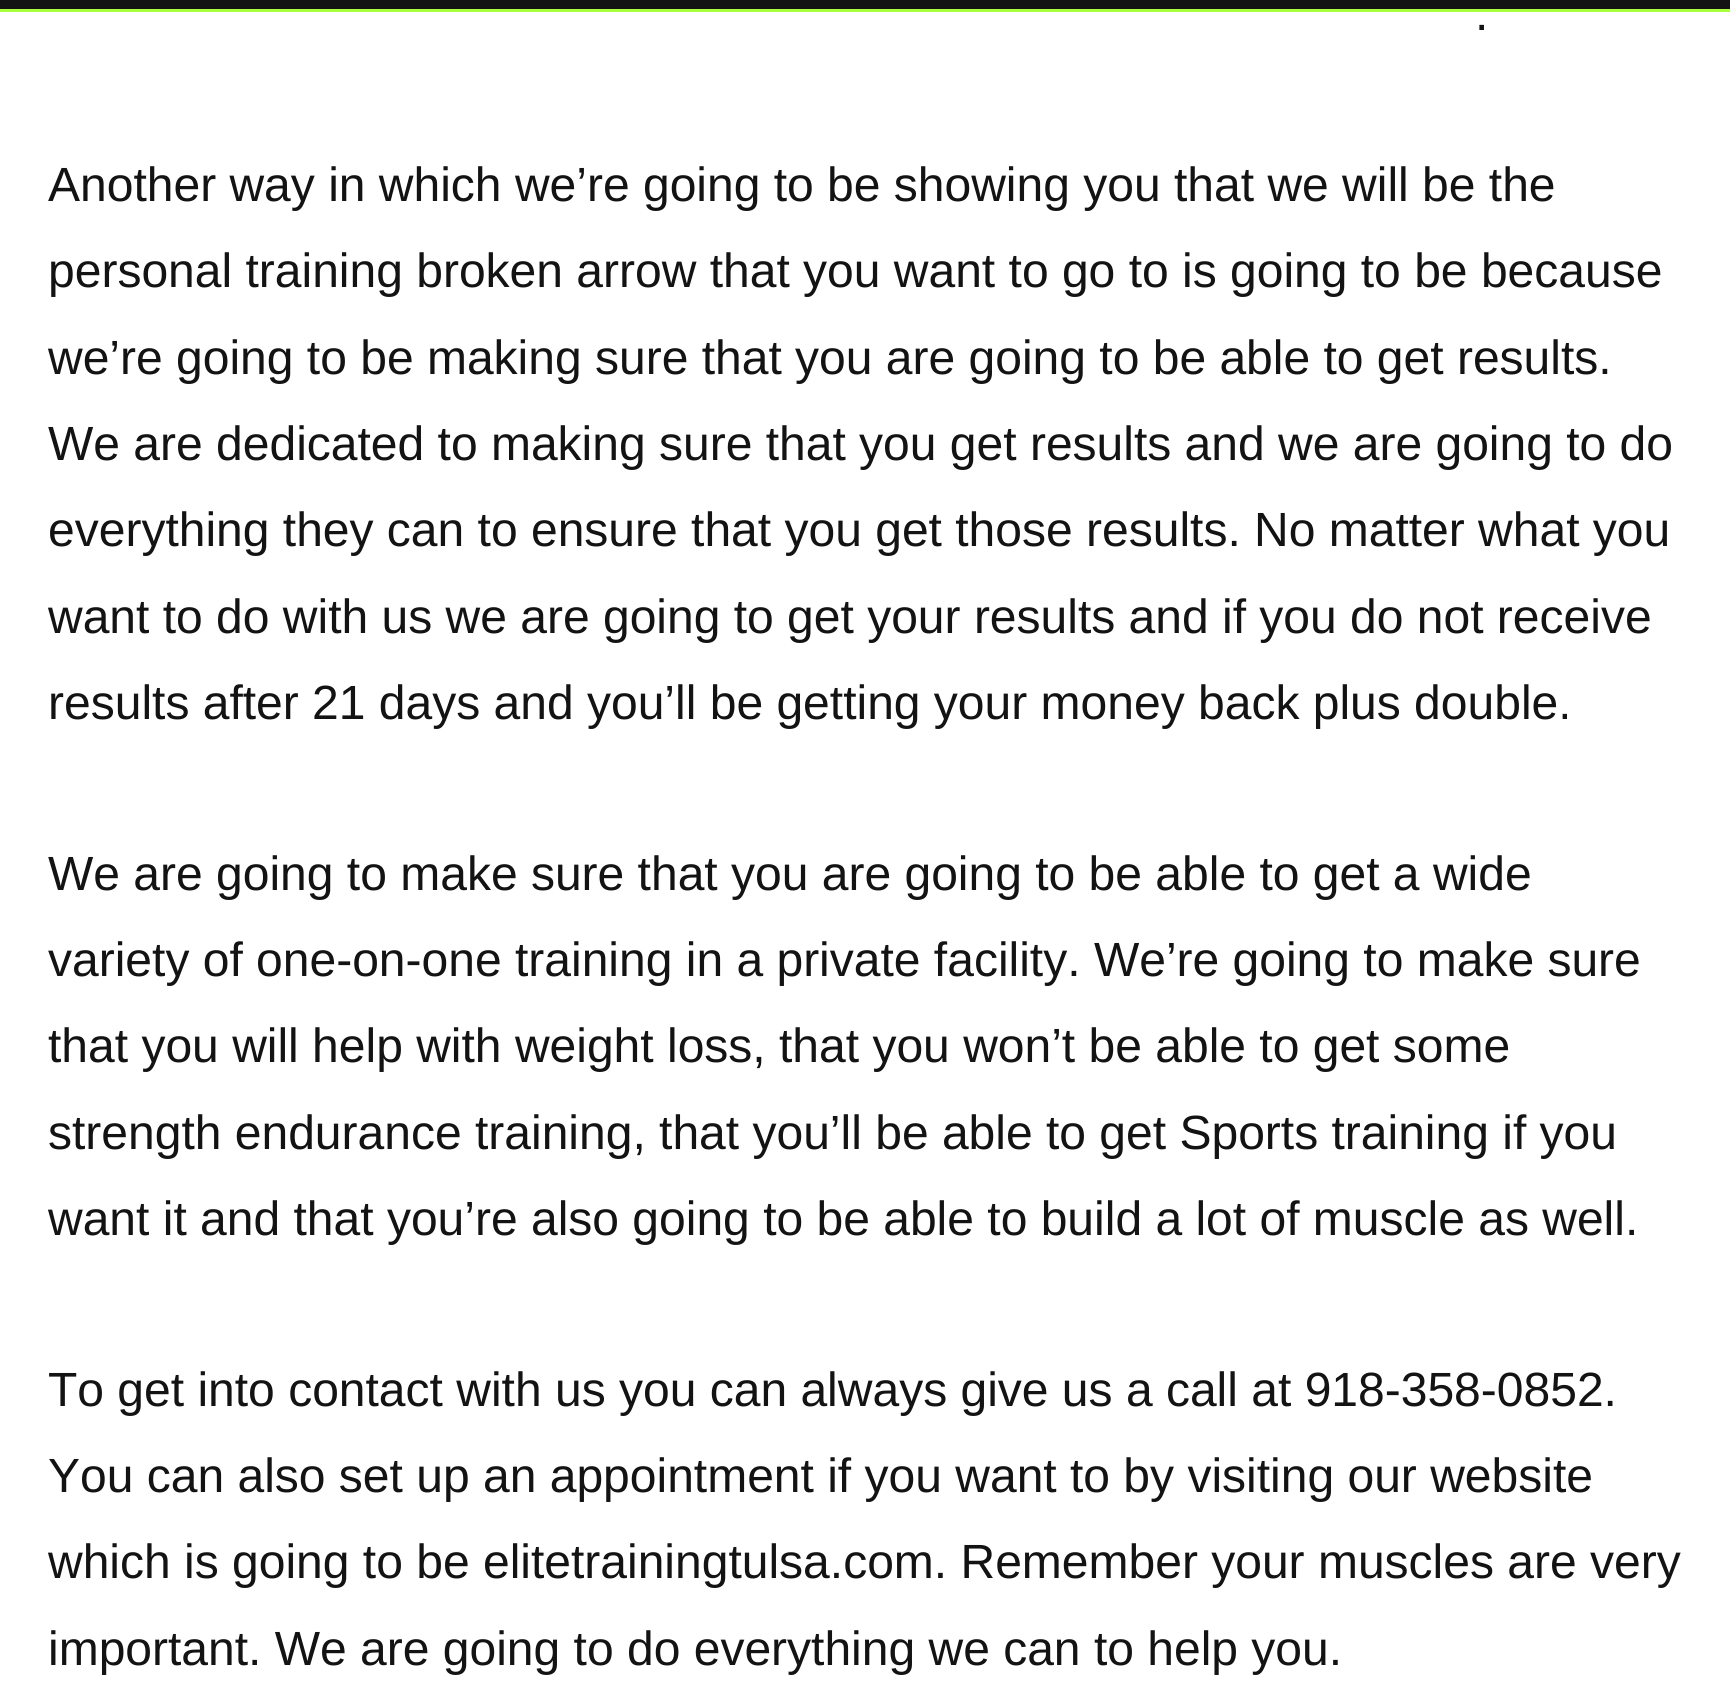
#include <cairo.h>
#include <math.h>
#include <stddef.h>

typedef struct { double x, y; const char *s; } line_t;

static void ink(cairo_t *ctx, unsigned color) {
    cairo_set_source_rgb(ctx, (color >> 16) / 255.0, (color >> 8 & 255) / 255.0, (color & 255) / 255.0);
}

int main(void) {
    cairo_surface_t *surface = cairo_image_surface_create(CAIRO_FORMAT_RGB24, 1730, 1697);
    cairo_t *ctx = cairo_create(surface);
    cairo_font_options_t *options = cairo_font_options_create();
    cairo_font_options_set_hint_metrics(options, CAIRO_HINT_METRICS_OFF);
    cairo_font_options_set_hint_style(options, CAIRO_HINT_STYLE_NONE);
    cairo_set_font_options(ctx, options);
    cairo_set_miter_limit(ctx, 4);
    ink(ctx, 0xFFFFFF);
    cairo_paint(ctx);
    ink(ctx, 0x131313);
    cairo_rectangle(ctx, 0, 0, 1730, 9);
    cairo_fill(ctx);
    ink(ctx, 0xA7FF3D);
    cairo_rectangle(ctx, 0, 9, 1730, 3);
    cairo_fill(ctx);
    cairo_select_font_face(ctx, "Arimo", CAIRO_FONT_SLANT_NORMAL, CAIRO_FONT_WEIGHT_NORMAL);
    cairo_set_font_size(ctx, 48);
    ink(ctx, 0x131313);
    {
        static const line_t items[] = {
            {1475, 30, "."},
            {48, 201, "Another way in which we’re going to be showing you that we will be the"},
            {48, 287, "personal training broken arrow that you want to go to is going to be because"},
            {48, 374, "we’re going to be making sure that you are going to be able to get results."},
            {48, 460, "We are dedicated to making sure that you get results and we are going to do"},
            {48, 546, "everything they can to ensure that you get those results. No matter what you"},
            {48, 633, "want to do with us we are going to get your results and if you do not receive"},
            {48, 719, "results after 21 days and you’ll be getting your money back plus double."},
            {48, 890, "We are going to make sure that you are going to be able to get a wide"},
            {48, 976, "variety of one-on-one training in a private facility. We’re going to make sure"},
            {48, 1062, "that you will help with weight loss, that you won’t be able to get some"},
            {48, 1149, "strength endurance training, that you’ll be able to get Sports training if you"},
            {48, 1235, "want it and that you’re also going to be able to build a lot of muscle as well."},
            {48, 1406, "To get into contact with us you can always give us a call at 918-358-0852."},
            {48, 1492, "You can also set up an appointment if you want to by visiting our website"},
            {48, 1578, "which is going to be elitetrainingtulsa.com. Remember your muscles are very"},
            {48, 1665, "important. We are going to do everything we can to help you."},
        };
        for (size_t i = 0; i < sizeof items / sizeof *items; i++) {
            cairo_move_to(ctx, items[i].x, items[i].y);
            cairo_show_text(ctx, items[i].s);
        }
    }
    cairo_surface_write_to_png(surface, "image.png");
    cairo_font_options_destroy(options);
    cairo_destroy(ctx);
    cairo_surface_destroy(surface);
    return 0;
}
